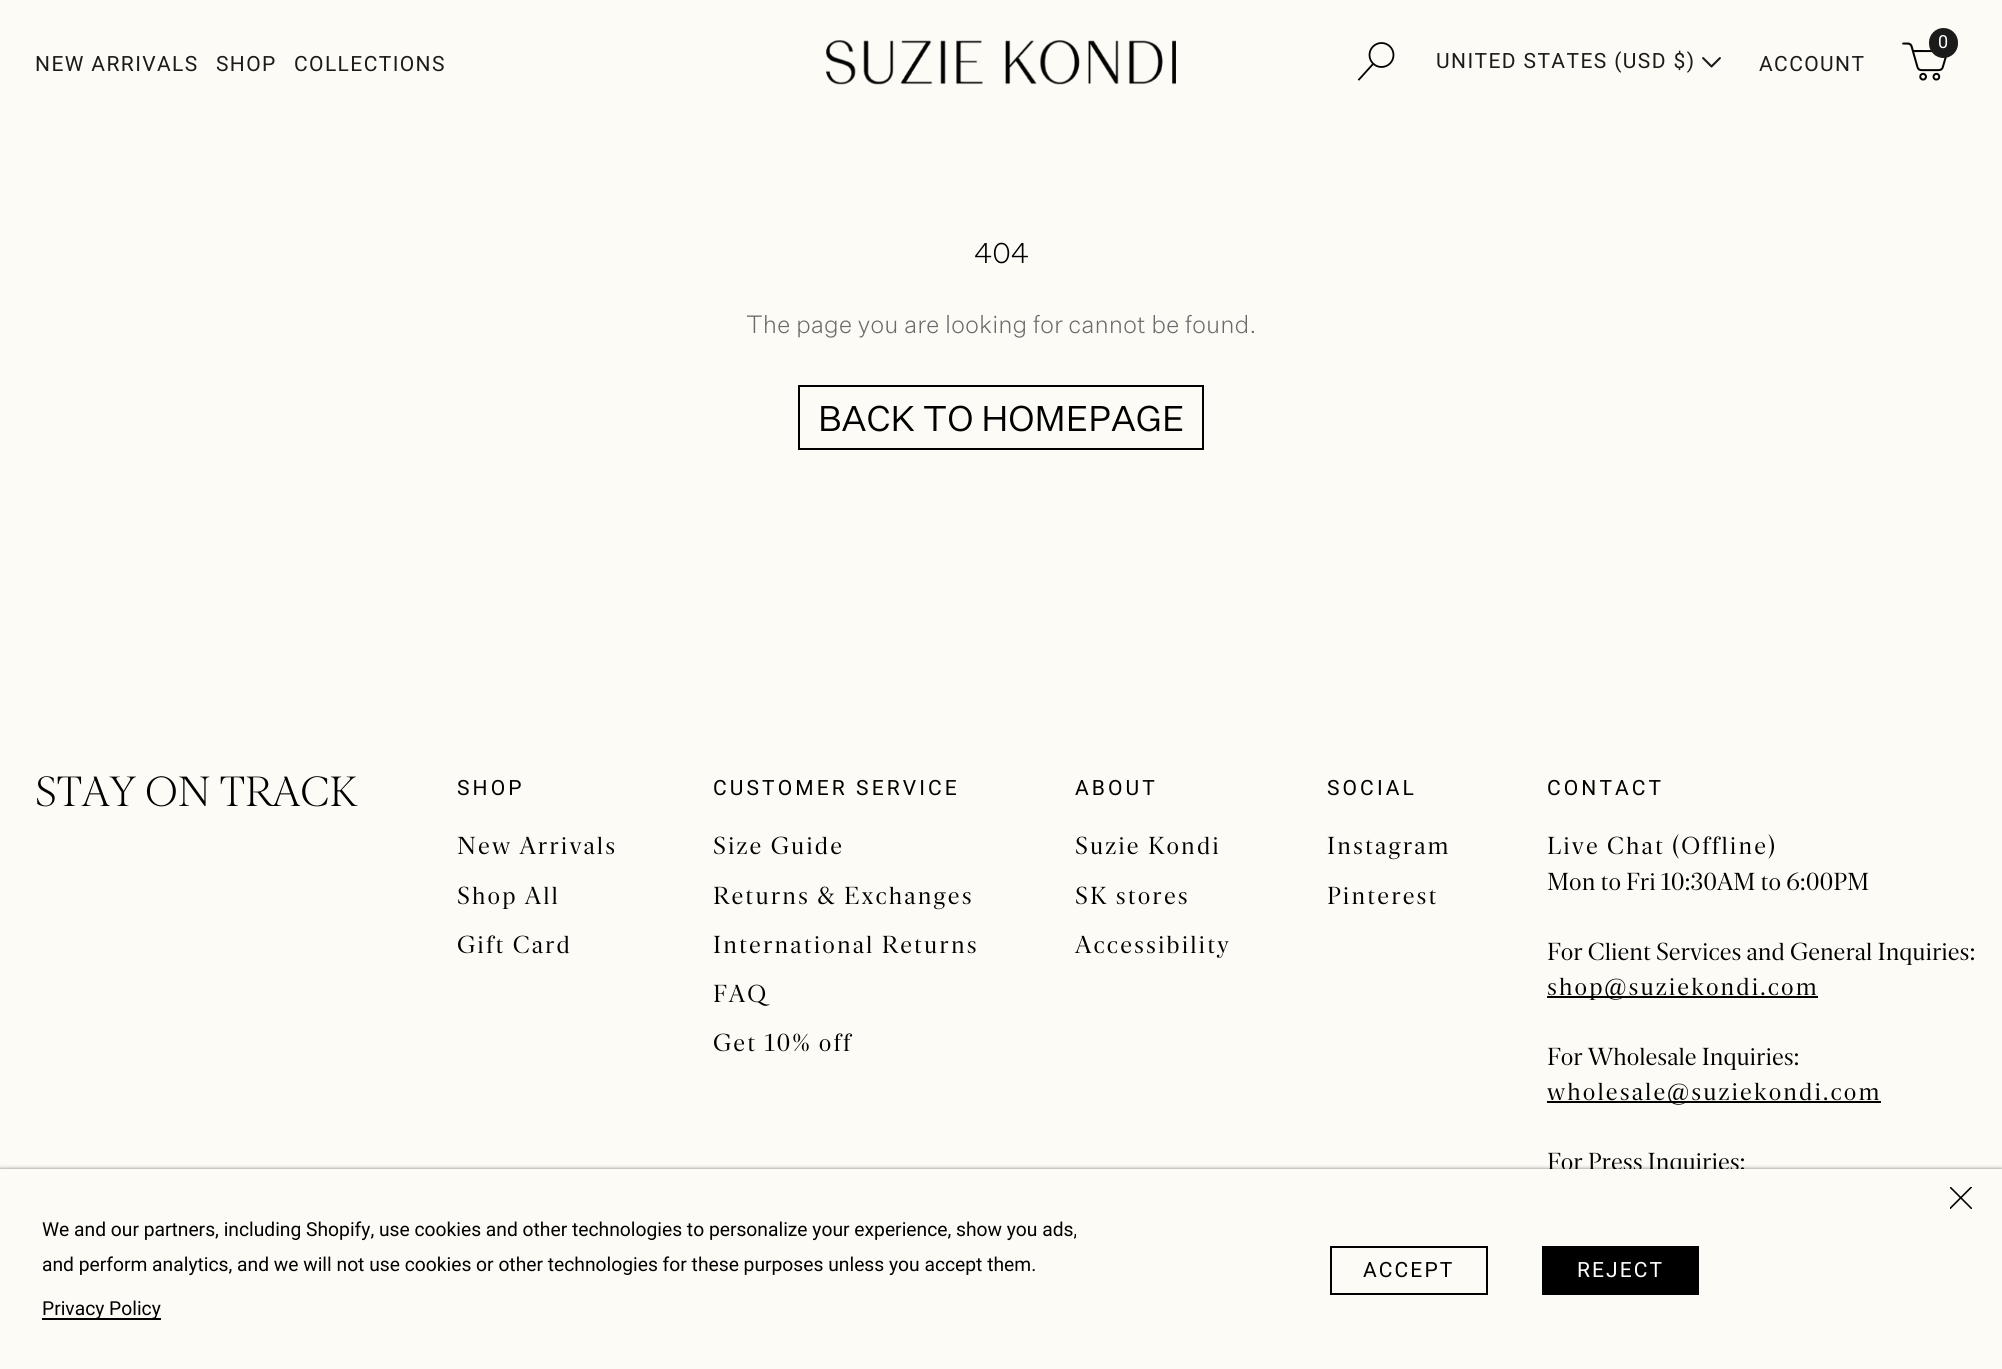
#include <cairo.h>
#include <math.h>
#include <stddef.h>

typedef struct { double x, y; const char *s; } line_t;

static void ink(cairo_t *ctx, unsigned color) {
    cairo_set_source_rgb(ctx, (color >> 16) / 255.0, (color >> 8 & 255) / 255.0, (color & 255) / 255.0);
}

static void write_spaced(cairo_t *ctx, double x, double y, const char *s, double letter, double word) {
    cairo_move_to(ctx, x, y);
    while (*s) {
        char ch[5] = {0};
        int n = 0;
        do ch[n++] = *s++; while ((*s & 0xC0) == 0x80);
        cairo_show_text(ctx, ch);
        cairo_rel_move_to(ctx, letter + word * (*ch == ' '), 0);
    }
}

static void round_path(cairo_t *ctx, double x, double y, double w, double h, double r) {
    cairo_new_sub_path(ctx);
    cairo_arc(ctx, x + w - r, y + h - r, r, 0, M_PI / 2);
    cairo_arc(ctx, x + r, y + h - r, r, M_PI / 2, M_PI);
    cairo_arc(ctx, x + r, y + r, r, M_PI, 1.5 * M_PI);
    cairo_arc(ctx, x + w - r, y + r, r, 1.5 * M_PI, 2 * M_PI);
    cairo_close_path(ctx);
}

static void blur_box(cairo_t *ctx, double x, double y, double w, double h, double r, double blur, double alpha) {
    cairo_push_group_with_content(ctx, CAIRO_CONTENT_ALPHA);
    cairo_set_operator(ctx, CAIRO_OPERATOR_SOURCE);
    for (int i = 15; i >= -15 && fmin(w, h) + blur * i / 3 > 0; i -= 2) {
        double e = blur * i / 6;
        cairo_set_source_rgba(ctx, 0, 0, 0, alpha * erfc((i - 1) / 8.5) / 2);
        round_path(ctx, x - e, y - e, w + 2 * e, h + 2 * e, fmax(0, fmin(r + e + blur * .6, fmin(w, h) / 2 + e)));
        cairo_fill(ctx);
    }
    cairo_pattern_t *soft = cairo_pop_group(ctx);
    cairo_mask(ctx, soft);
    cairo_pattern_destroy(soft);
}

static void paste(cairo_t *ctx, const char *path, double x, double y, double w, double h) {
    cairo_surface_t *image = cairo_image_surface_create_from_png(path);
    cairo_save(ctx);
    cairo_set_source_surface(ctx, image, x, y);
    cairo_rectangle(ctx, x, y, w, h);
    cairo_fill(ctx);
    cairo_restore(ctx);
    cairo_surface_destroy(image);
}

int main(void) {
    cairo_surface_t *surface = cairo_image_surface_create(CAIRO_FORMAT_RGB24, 2002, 1369);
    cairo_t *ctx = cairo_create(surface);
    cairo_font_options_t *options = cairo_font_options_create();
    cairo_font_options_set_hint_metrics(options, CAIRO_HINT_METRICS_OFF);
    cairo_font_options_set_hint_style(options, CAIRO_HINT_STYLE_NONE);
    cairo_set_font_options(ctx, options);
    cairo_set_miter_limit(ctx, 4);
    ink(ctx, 0xFCFBF6);
    cairo_paint(ctx);
    cairo_select_font_face(ctx, "Roboto", CAIRO_FONT_SLANT_NORMAL, CAIRO_FONT_WEIGHT_NORMAL);
    cairo_set_font_size(ctx, 21);
    ink(ctx, 0x1C1B1B);
    {
        static const line_t items[] = {
            {35, 71, "NEW ARRIVALS"},
            {216, 71, "SHOP"},
            {294, 71, "COLLECTIONS"},
        };
        for (size_t i = 0; i < sizeof items / sizeof *items; i++) {
            write_spaced(ctx, items[i].x, items[i].y, items[i].s, 1.4, 0);
        }
    }
    paste(ctx, "media/1.png", 826, 40, 350, 45);
    cairo_arc(ctx, 1381.5, 55, 12, 0, 2 * M_PI);
    ink(ctx, 0x000000);
    cairo_set_line_width(ctx, 1.8);
    cairo_stroke(ctx);
    cairo_new_path(ctx);
    cairo_move_to(ctx, 1373, 64);
    cairo_line_to(ctx, 1359, 79.5);
    cairo_set_line_cap(ctx, CAIRO_LINE_CAP_SQUARE);
    cairo_stroke(ctx);
    ink(ctx, 0x1C1B1B);
    write_spaced(ctx, 1436, 68, "UNITED STATES (USD $)", 1.4, 0);
    paste(ctx, "media/2.png", 1702, 57, 19, 11);
    paste(ctx, "media/3.png", 1902, 42, 45, 39);
    round_path(ctx, 1929, 28, 29, 30, 14.5);
    cairo_fill(ctx);
    cairo_set_font_size(ctx, 18);
    ink(ctx, 0xFFFFFF);
    write_spaced(ctx, 1938, 48, "0", 1.4, 0);
    cairo_set_font_size(ctx, 21);
    ink(ctx, 0x1C1B1B);
    write_spaced(ctx, 1759, 71, "ACCOUNT", 1.4, 0);
    cairo_select_font_face(ctx, "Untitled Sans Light", CAIRO_FONT_SLANT_NORMAL, CAIRO_FONT_WEIGHT_NORMAL);
    cairo_set_font_size(ctx, 28);
    ink(ctx, 0x000000);
    cairo_move_to(ctx, 974, 263);
    cairo_show_text(ctx, "404");
    cairo_set_font_size(ctx, 24.5);
    ink(ctx, 0x6A6A6A);
    cairo_move_to(ctx, 746, 333);
    cairo_show_text(ctx, "The page you are looking for cannot be found.");
    cairo_rectangle(ctx, 799, 386, 404, 63);
    ink(ctx, 0x000000);
    cairo_set_line_width(ctx, 2);
    cairo_set_line_cap(ctx, CAIRO_LINE_CAP_BUTT);
    cairo_stroke(ctx);
    cairo_select_font_face(ctx, "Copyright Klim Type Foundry", CAIRO_FONT_SLANT_NORMAL, CAIRO_FONT_WEIGHT_NORMAL);
    cairo_set_font_size(ctx, 35);
    cairo_move_to(ctx, 818, 431);
    cairo_show_text(ctx, "BACK TO HOMEPAGE");
    cairo_select_font_face(ctx, "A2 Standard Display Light", CAIRO_FONT_SLANT_NORMAL, CAIRO_FONT_WEIGHT_NORMAL);
    cairo_set_font_size(ctx, 42);
    cairo_move_to(ctx, 35, 806);
    cairo_show_text(ctx, "STAY ON TRACK");
    cairo_select_font_face(ctx, "Roboto", CAIRO_FONT_SLANT_NORMAL, CAIRO_FONT_WEIGHT_NORMAL);
    cairo_set_font_size(ctx, 21);
    write_spaced(ctx, 457, 795, "SHOP", 3.1, 0);
    cairo_select_font_face(ctx, "A2 Standard Display", CAIRO_FONT_SLANT_NORMAL, CAIRO_FONT_WEIGHT_NORMAL);
    cairo_set_font_size(ctx, 24.5);
    {
        static const line_t items[] = {
            {457, 854, "New Arrivals"},
            {457, 904, "Shop All"},
            {457, 953, "Gift Card"},
        };
        for (size_t i = 0; i < sizeof items / sizeof *items; i++) {
            write_spaced(ctx, items[i].x, items[i].y, items[i].s, 2.1, 0);
        }
    }
    cairo_select_font_face(ctx, "Roboto", CAIRO_FONT_SLANT_NORMAL, CAIRO_FONT_WEIGHT_NORMAL);
    cairo_set_font_size(ctx, 21);
    write_spaced(ctx, 713, 795, "CUSTOMER SERVICE", 3.1, 0);
    cairo_select_font_face(ctx, "A2 Standard Display", CAIRO_FONT_SLANT_NORMAL, CAIRO_FONT_WEIGHT_NORMAL);
    cairo_set_font_size(ctx, 24.5);
    {
        static const line_t items[] = {
            {713, 854, "Size Guide"},
            {713, 904, "Returns & Exchanges"},
            {713, 953, "International Returns"},
            {713, 1002, "FAQ"},
            {713, 1051, "Get 10% off"},
        };
        for (size_t i = 0; i < sizeof items / sizeof *items; i++) {
            write_spaced(ctx, items[i].x, items[i].y, items[i].s, 2.1, 0);
        }
    }
    cairo_select_font_face(ctx, "Roboto", CAIRO_FONT_SLANT_NORMAL, CAIRO_FONT_WEIGHT_NORMAL);
    cairo_set_font_size(ctx, 21);
    write_spaced(ctx, 1075, 795, "ABOUT", 3.1, 0);
    cairo_select_font_face(ctx, "A2 Standard Display", CAIRO_FONT_SLANT_NORMAL, CAIRO_FONT_WEIGHT_NORMAL);
    cairo_set_font_size(ctx, 24.5);
    {
        static const line_t items[] = {
            {1075, 854, "Suzie Kondi"},
            {1075, 904, "SK stores"},
            {1075, 953, "Accessibility"},
        };
        for (size_t i = 0; i < sizeof items / sizeof *items; i++) {
            write_spaced(ctx, items[i].x, items[i].y, items[i].s, 2.1, 0);
        }
    }
    cairo_select_font_face(ctx, "Roboto", CAIRO_FONT_SLANT_NORMAL, CAIRO_FONT_WEIGHT_NORMAL);
    cairo_set_font_size(ctx, 21);
    write_spaced(ctx, 1327, 795, "SOCIAL", 3.1, 0);
    cairo_select_font_face(ctx, "A2 Standard Display", CAIRO_FONT_SLANT_NORMAL, CAIRO_FONT_WEIGHT_NORMAL);
    cairo_set_font_size(ctx, 24.5);
    write_spaced(ctx, 1327, 854, "Instagram", 2.1, 0);
    write_spaced(ctx, 1327, 904, "Pinterest", 2.1, 0);
    cairo_select_font_face(ctx, "Roboto", CAIRO_FONT_SLANT_NORMAL, CAIRO_FONT_WEIGHT_NORMAL);
    cairo_set_font_size(ctx, 21);
    write_spaced(ctx, 1547, 795, "CONTACT", 3.1, 0);
    cairo_select_font_face(ctx, "A2 Standard Display", CAIRO_FONT_SLANT_NORMAL, CAIRO_FONT_WEIGHT_NORMAL);
    cairo_set_font_size(ctx, 24.5);
    write_spaced(ctx, 1547, 854, "Live Chat (Offline)", 2.1, 0);
    cairo_move_to(ctx, 1547, 890);
    cairo_show_text(ctx, "Mon to Fri 10:30AM to 6:00PM");
    cairo_move_to(ctx, 1547, 960);
    cairo_show_text(ctx, "For Client Services and General Inquiries:");
    cairo_rectangle(ctx, 1547, 996, 271, 2);
    cairo_fill(ctx);
    write_spaced(ctx, 1547, 995, "shop@suziekondi.com", 2.1, 0);
    cairo_move_to(ctx, 1547, 1065);
    cairo_show_text(ctx, "For Wholesale Inquiries:");
    cairo_rectangle(ctx, 1547, 1101, 334, 2);
    cairo_fill(ctx);
    write_spaced(ctx, 1547, 1100, "wholesale@suziekondi.com", 2.1, 0);
    cairo_move_to(ctx, 1547, 1170);
    cairo_show_text(ctx, "For Press Inquiries:");
    ink(ctx, 0x000000);
    blur_box(ctx, 0, 1169, 2002, 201, 0, 2, 0.5);
    ink(ctx, 0xFCFBF6);
    cairo_rectangle(ctx, 0, 1169, 2002, 200);
    cairo_fill(ctx);
    cairo_save(ctx);
    cairo_rectangle(ctx, 1950, 1187, 22, 22);
    cairo_clip(ctx);
    cairo_new_path(ctx);
    cairo_move_to(ctx, 1972, 1186.5);
    cairo_line_to(ctx, 1949.5, 1209);
    cairo_move_to(ctx, 1972, 1209);
    cairo_line_to(ctx, 1949.5, 1186.5);
    ink(ctx, 0x000000);
    cairo_set_line_width(ctx, 1.6);
    cairo_stroke(ctx);
    cairo_restore(ctx);
    cairo_select_font_face(ctx, "Roboto", CAIRO_FONT_SLANT_NORMAL, CAIRO_FONT_WEIGHT_NORMAL);
    cairo_set_font_size(ctx, 19.25);
    ink(ctx, 0x000000);
    cairo_move_to(ctx, 42, 1236);
    cairo_show_text(ctx, "We and our partners, including Shopify, use cookies and other technologies to personalize your experience, show you ads,");
    cairo_move_to(ctx, 42, 1271);
    cairo_show_text(ctx, "and perform analytics, and we will not use cookies or other technologies for these purposes unless you accept them.");
    cairo_rectangle(ctx, 42, 1318, 119, 2);
    cairo_fill(ctx);
    cairo_move_to(ctx, 42, 1315);
    cairo_show_text(ctx, "Privacy Policy");
    cairo_rectangle(ctx, 1331, 1247, 156, 47);
    cairo_stroke(ctx);
    cairo_set_font_size(ctx, 21);
    write_spaced(ctx, 1363, 1277, "ACCEPT", 2.1, 0);
    cairo_rectangle(ctx, 1542, 1246, 157, 49);
    cairo_fill(ctx);
    ink(ctx, 0xFFFFFF);
    write_spaced(ctx, 1577, 1277, "REJECT", 2.1, 0);
    cairo_surface_write_to_png(surface, "image.png");
    cairo_font_options_destroy(options);
    cairo_destroy(ctx);
    cairo_surface_destroy(surface);
    return 0;
}
